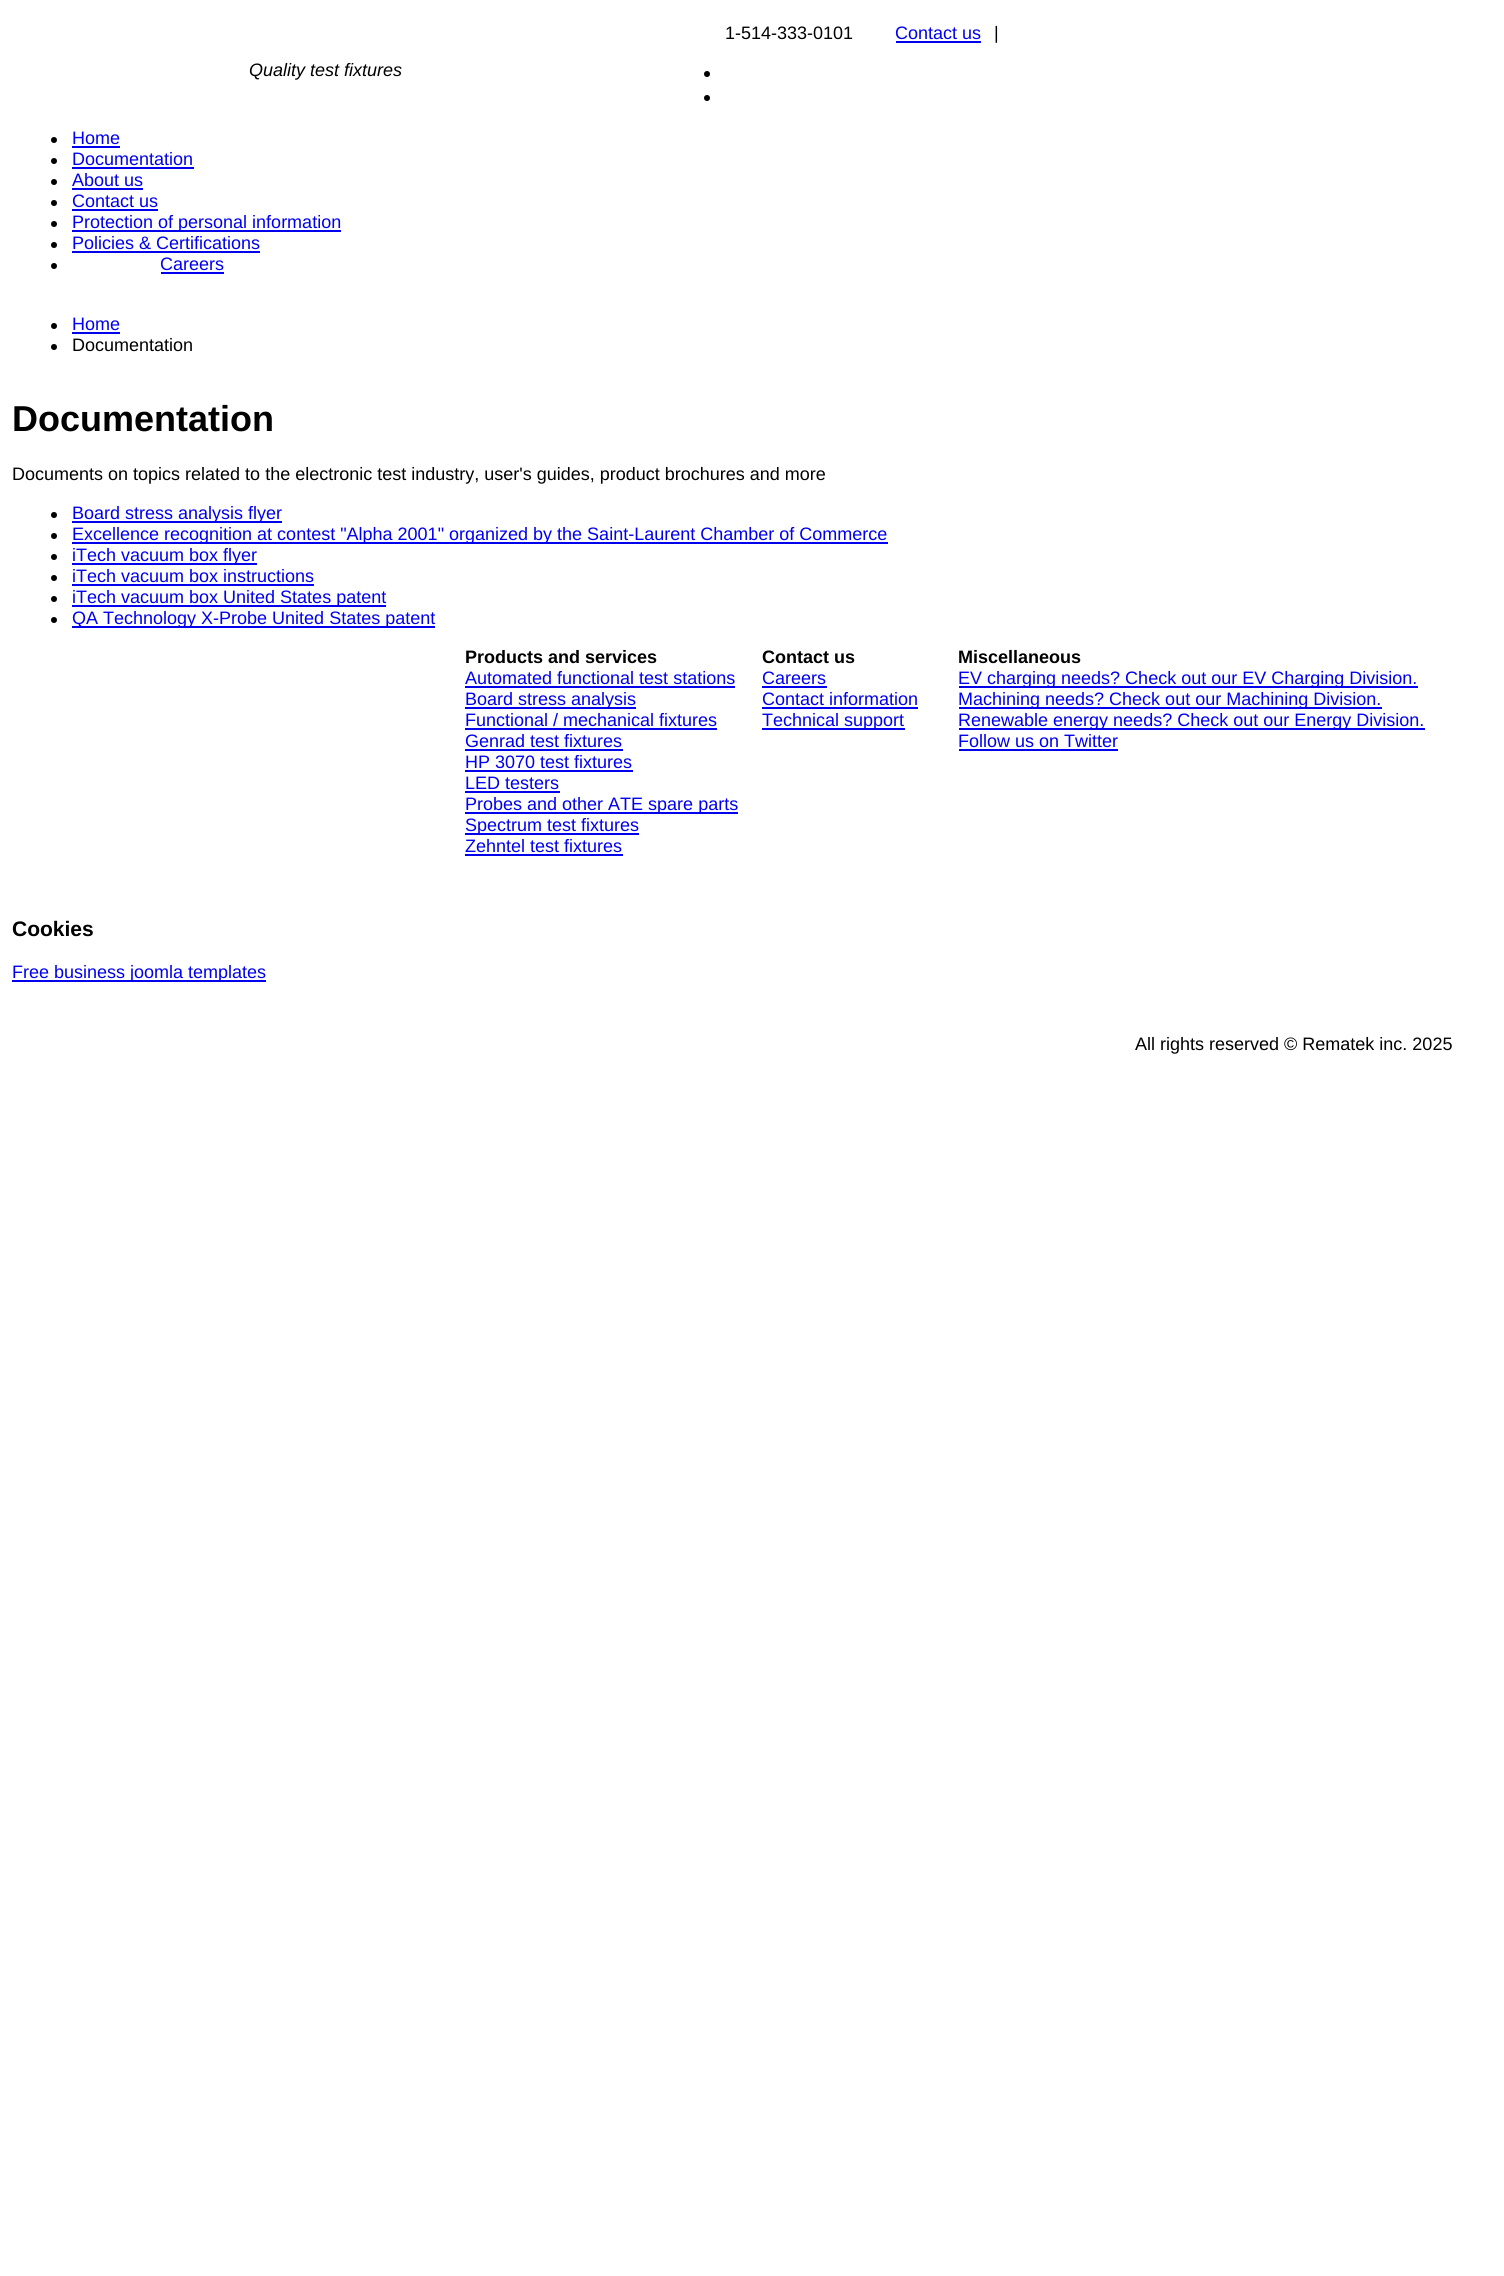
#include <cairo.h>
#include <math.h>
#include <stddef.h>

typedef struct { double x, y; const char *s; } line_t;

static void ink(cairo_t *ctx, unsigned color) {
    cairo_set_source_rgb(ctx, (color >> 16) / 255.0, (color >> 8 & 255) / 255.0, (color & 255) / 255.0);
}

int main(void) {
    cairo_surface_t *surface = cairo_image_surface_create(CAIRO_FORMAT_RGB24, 1504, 2276);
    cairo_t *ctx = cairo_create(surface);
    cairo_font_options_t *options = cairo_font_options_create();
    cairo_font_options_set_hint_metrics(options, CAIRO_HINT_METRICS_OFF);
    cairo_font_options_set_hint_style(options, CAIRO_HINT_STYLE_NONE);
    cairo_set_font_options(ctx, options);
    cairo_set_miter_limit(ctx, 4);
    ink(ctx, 0xFFFFFF);
    cairo_paint(ctx);
    cairo_select_font_face(ctx, "Liberation Sans", CAIRO_FONT_SLANT_NORMAL, CAIRO_FONT_WEIGHT_NORMAL);
    cairo_set_font_size(ctx, 18);
    ink(ctx, 0x000000);
    cairo_move_to(ctx, 725, 39);
    cairo_show_text(ctx, "1-514-333-0101");
    ink(ctx, 0x0000EE);
    cairo_move_to(ctx, 895, 39);
    cairo_show_text(ctx, "Contact us");
    cairo_rectangle(ctx, 896, 41, 85, 2);
    cairo_fill(ctx);
    ink(ctx, 0x000000);
    cairo_move_to(ctx, 994, 39);
    cairo_show_text(ctx, "|");
    cairo_new_path(ctx);
    cairo_arc(ctx, 707, 74, 3, 0, 2 * M_PI);
    cairo_fill(ctx);
    cairo_arc(ctx, 707, 98, 3, 0, 2 * M_PI);
    cairo_fill(ctx);
    cairo_select_font_face(ctx, "Liberation Sans", CAIRO_FONT_SLANT_ITALIC, CAIRO_FONT_WEIGHT_NORMAL);
    cairo_move_to(ctx, 249, 76);
    cairo_show_text(ctx, "Quality test fixtures");
    cairo_new_path(ctx);
    cairo_arc(ctx, 54, 140, 3, 0, 2 * M_PI);
    cairo_fill(ctx);
    cairo_select_font_face(ctx, "Liberation Sans", CAIRO_FONT_SLANT_NORMAL, CAIRO_FONT_WEIGHT_NORMAL);
    ink(ctx, 0x0000EE);
    cairo_move_to(ctx, 72, 144);
    cairo_show_text(ctx, "Home");
    cairo_rectangle(ctx, 72, 146, 48, 2);
    cairo_fill(ctx);
    ink(ctx, 0x000000);
    cairo_arc(ctx, 54, 161, 3, 0, 2 * M_PI);
    cairo_fill(ctx);
    ink(ctx, 0x0000EE);
    cairo_move_to(ctx, 72, 165);
    cairo_show_text(ctx, "Documentation");
    cairo_rectangle(ctx, 72, 167, 122, 2);
    cairo_fill(ctx);
    ink(ctx, 0x000000);
    cairo_arc(ctx, 54, 182, 3, 0, 2 * M_PI);
    cairo_fill(ctx);
    ink(ctx, 0x0000EE);
    cairo_move_to(ctx, 72, 186);
    cairo_show_text(ctx, "About us");
    cairo_rectangle(ctx, 72, 188, 71, 2);
    cairo_fill(ctx);
    ink(ctx, 0x000000);
    cairo_arc(ctx, 54, 203, 3, 0, 2 * M_PI);
    cairo_fill(ctx);
    ink(ctx, 0x0000EE);
    cairo_move_to(ctx, 72, 207);
    cairo_show_text(ctx, "Contact us");
    cairo_rectangle(ctx, 72, 209, 86, 2);
    cairo_fill(ctx);
    ink(ctx, 0x000000);
    cairo_arc(ctx, 54, 224, 3, 0, 2 * M_PI);
    cairo_fill(ctx);
    ink(ctx, 0x0000EE);
    cairo_rectangle(ctx, 72, 230, 269, 2);
    cairo_fill(ctx);
    cairo_move_to(ctx, 72, 228);
    cairo_show_text(ctx, "Protection of personal information");
    ink(ctx, 0x000000);
    cairo_new_path(ctx);
    cairo_arc(ctx, 54, 245, 3, 0, 2 * M_PI);
    cairo_fill(ctx);
    ink(ctx, 0x0000EE);
    cairo_move_to(ctx, 72, 249);
    cairo_show_text(ctx, "Policies & Certifications");
    cairo_rectangle(ctx, 72, 251, 188, 2);
    cairo_fill(ctx);
    ink(ctx, 0x000000);
    cairo_arc(ctx, 54, 266, 3, 0, 2 * M_PI);
    cairo_fill(ctx);
    ink(ctx, 0x0000EE);
    cairo_move_to(ctx, 160, 270);
    cairo_show_text(ctx, "Careers");
    cairo_rectangle(ctx, 161, 272, 63, 2);
    cairo_fill(ctx);
    ink(ctx, 0x000000);
    cairo_arc(ctx, 54, 326, 3, 0, 2 * M_PI);
    cairo_fill(ctx);
    ink(ctx, 0x0000EE);
    cairo_move_to(ctx, 72, 330);
    cairo_show_text(ctx, "Home");
    cairo_rectangle(ctx, 72, 332, 48, 2);
    cairo_fill(ctx);
    ink(ctx, 0x000000);
    cairo_arc(ctx, 54, 347, 3, 0, 2 * M_PI);
    cairo_fill(ctx);
    cairo_move_to(ctx, 72, 351);
    cairo_show_text(ctx, "Documentation");
    cairo_select_font_face(ctx, "Liberation Sans", CAIRO_FONT_SLANT_NORMAL, CAIRO_FONT_WEIGHT_BOLD);
    cairo_set_font_size(ctx, 36);
    cairo_move_to(ctx, 12, 431);
    cairo_show_text(ctx, "Documentation");
    cairo_select_font_face(ctx, "Liberation Sans", CAIRO_FONT_SLANT_NORMAL, CAIRO_FONT_WEIGHT_NORMAL);
    cairo_set_font_size(ctx, 18);
    cairo_move_to(ctx, 12, 480);
    cairo_show_text(ctx, "Documents on topics related to the electronic test industry, user's guides, product brochures and more");
    cairo_new_path(ctx);
    cairo_arc(ctx, 54, 515, 3, 0, 2 * M_PI);
    cairo_fill(ctx);
    ink(ctx, 0x0000EE);
    cairo_rectangle(ctx, 72, 521, 210, 2);
    cairo_fill(ctx);
    cairo_move_to(ctx, 72, 519);
    cairo_show_text(ctx, "Board stress analysis flyer");
    ink(ctx, 0x000000);
    cairo_new_path(ctx);
    cairo_arc(ctx, 54, 536, 3, 0, 2 * M_PI);
    cairo_fill(ctx);
    ink(ctx, 0x0000EE);
    cairo_rectangle(ctx, 72, 542, 816, 2);
    cairo_fill(ctx);
    cairo_move_to(ctx, 72, 540);
    cairo_show_text(ctx, "Excellence recognition at contest \"Alpha 2001\" organized by the Saint-Laurent Chamber of Commerce");
    ink(ctx, 0x000000);
    cairo_new_path(ctx);
    cairo_arc(ctx, 54, 557, 3, 0, 2 * M_PI);
    cairo_fill(ctx);
    ink(ctx, 0x0000EE);
    cairo_rectangle(ctx, 72, 563, 185, 2);
    cairo_fill(ctx);
    cairo_move_to(ctx, 72, 561);
    cairo_show_text(ctx, "iTech vacuum box flyer");
    ink(ctx, 0x000000);
    cairo_new_path(ctx);
    cairo_arc(ctx, 54, 578, 3, 0, 2 * M_PI);
    cairo_fill(ctx);
    ink(ctx, 0x0000EE);
    cairo_move_to(ctx, 72, 582);
    cairo_show_text(ctx, "iTech vacuum box instructions");
    cairo_rectangle(ctx, 72, 584, 242, 2);
    cairo_fill(ctx);
    ink(ctx, 0x000000);
    cairo_arc(ctx, 54, 599, 3, 0, 2 * M_PI);
    cairo_fill(ctx);
    ink(ctx, 0x0000EE);
    cairo_rectangle(ctx, 72, 605, 314, 2);
    cairo_fill(ctx);
    cairo_move_to(ctx, 72, 603);
    cairo_show_text(ctx, "iTech vacuum box United States patent");
    ink(ctx, 0x000000);
    cairo_new_path(ctx);
    cairo_arc(ctx, 54, 620, 3, 0, 2 * M_PI);
    cairo_fill(ctx);
    ink(ctx, 0x0000EE);
    cairo_rectangle(ctx, 72, 626, 363, 2);
    cairo_fill(ctx);
    cairo_move_to(ctx, 72, 624);
    cairo_show_text(ctx, "QA Technology X-Probe United States patent");
    cairo_select_font_face(ctx, "Liberation Sans", CAIRO_FONT_SLANT_NORMAL, CAIRO_FONT_WEIGHT_BOLD);
    cairo_set_font_size(ctx, 21);
    ink(ctx, 0x000000);
    cairo_move_to(ctx, 12, 936);
    cairo_show_text(ctx, "Cookies");
    cairo_set_font_size(ctx, 18);
    {
        static const line_t items[] = {
            {465, 663, "Products and services"},
            {762, 663, "Contact us"},
            {958, 663, "Miscellaneous"},
        };
        for (size_t i = 0; i < sizeof items / sizeof *items; i++) {
            cairo_move_to(ctx, items[i].x, items[i].y);
            cairo_show_text(ctx, items[i].s);
        }
    }
    cairo_select_font_face(ctx, "Liberation Sans", CAIRO_FONT_SLANT_NORMAL, CAIRO_FONT_WEIGHT_NORMAL);
    ink(ctx, 0x0000EE);
    cairo_move_to(ctx, 465, 684);
    cairo_show_text(ctx, "Automated functional test stations");
    cairo_rectangle(ctx, 465, 686, 270, 2);
    cairo_fill(ctx);
    cairo_move_to(ctx, 762, 684);
    cairo_show_text(ctx, "Careers");
    cairo_rectangle(ctx, 762, 686, 65, 2);
    cairo_fill(ctx);
    cairo_rectangle(ctx, 959, 686, 459, 2);
    cairo_fill(ctx);
    cairo_move_to(ctx, 958, 684);
    cairo_show_text(ctx, "EV charging needs? Check out our EV Charging Division.");
    cairo_rectangle(ctx, 465, 707, 171, 2);
    cairo_fill(ctx);
    cairo_move_to(ctx, 465, 705);
    cairo_show_text(ctx, "Board stress analysis");
    cairo_move_to(ctx, 762, 705);
    cairo_show_text(ctx, "Contact information");
    cairo_rectangle(ctx, 762, 707, 156, 2);
    cairo_fill(ctx);
    cairo_rectangle(ctx, 959, 707, 423, 2);
    cairo_fill(ctx);
    cairo_move_to(ctx, 958, 705);
    cairo_show_text(ctx, "Machining needs? Check out our Machining Division.");
    cairo_move_to(ctx, 465, 726);
    cairo_show_text(ctx, "Functional / mechanical fixtures");
    cairo_rectangle(ctx, 465, 728, 252, 2);
    cairo_fill(ctx);
    cairo_rectangle(ctx, 762, 728, 143, 2);
    cairo_fill(ctx);
    cairo_move_to(ctx, 762, 726);
    cairo_show_text(ctx, "Technical support");
    cairo_rectangle(ctx, 959, 728, 466, 2);
    cairo_fill(ctx);
    cairo_move_to(ctx, 958, 726);
    cairo_show_text(ctx, "Renewable energy needs? Check out our Energy Division.");
    cairo_move_to(ctx, 465, 747);
    cairo_show_text(ctx, "Genrad test fixtures");
    cairo_rectangle(ctx, 465, 749, 158, 2);
    cairo_fill(ctx);
    cairo_move_to(ctx, 958, 747);
    cairo_show_text(ctx, "Follow us on Twitter");
    cairo_rectangle(ctx, 959, 749, 159, 2);
    cairo_fill(ctx);
    cairo_move_to(ctx, 465, 768);
    cairo_show_text(ctx, "HP 3070 test fixtures");
    cairo_rectangle(ctx, 465, 770, 168, 2);
    cairo_fill(ctx);
    cairo_move_to(ctx, 465, 789);
    cairo_show_text(ctx, "LED testers");
    cairo_rectangle(ctx, 465, 791, 95, 2);
    cairo_fill(ctx);
    cairo_rectangle(ctx, 465, 812, 273, 2);
    cairo_fill(ctx);
    cairo_move_to(ctx, 465, 810);
    cairo_show_text(ctx, "Probes and other ATE spare parts");
    cairo_rectangle(ctx, 465, 833, 174, 2);
    cairo_fill(ctx);
    cairo_move_to(ctx, 465, 831);
    cairo_show_text(ctx, "Spectrum test fixtures");
    cairo_move_to(ctx, 465, 852);
    cairo_show_text(ctx, "Zehntel test fixtures");
    cairo_rectangle(ctx, 465, 854, 158, 2);
    cairo_fill(ctx);
    ink(ctx, 0x000000);
    cairo_move_to(ctx, 1135, 1050);
    cairo_show_text(ctx, "All rights reserved © Rematek inc. 2025");
    ink(ctx, 0x0000EE);
    cairo_rectangle(ctx, 12, 980, 254, 2);
    cairo_fill(ctx);
    cairo_move_to(ctx, 12, 978);
    cairo_show_text(ctx, "Free business joomla templates");
    cairo_surface_write_to_png(surface, "image.png");
    cairo_font_options_destroy(options);
    cairo_destroy(ctx);
    cairo_surface_destroy(surface);
    return 0;
}
